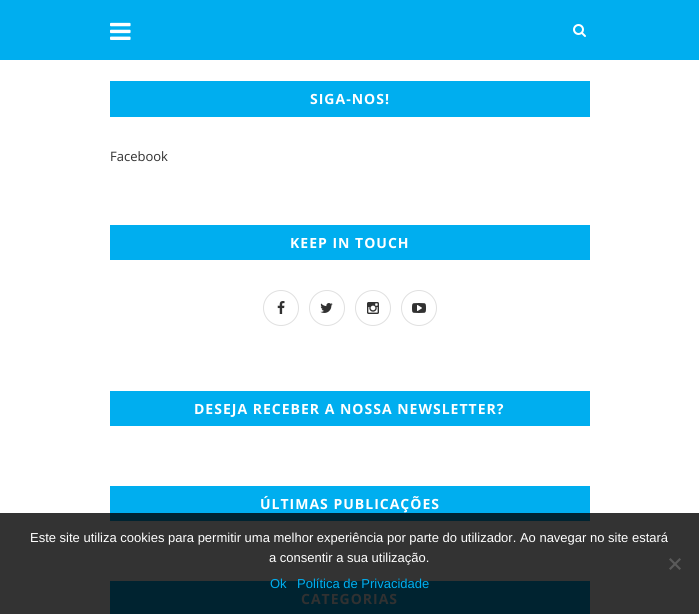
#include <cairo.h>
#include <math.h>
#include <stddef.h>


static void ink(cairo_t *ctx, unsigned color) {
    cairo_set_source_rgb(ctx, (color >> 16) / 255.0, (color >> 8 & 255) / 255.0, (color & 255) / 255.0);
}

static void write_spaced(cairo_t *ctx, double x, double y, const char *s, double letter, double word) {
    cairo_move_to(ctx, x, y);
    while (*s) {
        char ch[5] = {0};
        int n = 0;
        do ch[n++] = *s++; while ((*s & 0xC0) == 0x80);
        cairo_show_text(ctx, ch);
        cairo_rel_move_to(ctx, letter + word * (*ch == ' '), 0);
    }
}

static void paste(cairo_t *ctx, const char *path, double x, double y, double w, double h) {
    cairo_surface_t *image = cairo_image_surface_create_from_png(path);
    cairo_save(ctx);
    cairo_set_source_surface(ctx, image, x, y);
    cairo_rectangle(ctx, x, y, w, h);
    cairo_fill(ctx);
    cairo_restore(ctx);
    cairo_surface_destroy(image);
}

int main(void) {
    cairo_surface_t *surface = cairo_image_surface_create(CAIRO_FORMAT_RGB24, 699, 614);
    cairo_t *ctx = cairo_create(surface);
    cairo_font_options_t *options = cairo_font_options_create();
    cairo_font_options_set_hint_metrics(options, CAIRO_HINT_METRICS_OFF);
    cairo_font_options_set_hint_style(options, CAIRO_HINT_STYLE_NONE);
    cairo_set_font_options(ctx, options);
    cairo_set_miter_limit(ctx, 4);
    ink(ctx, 0xFFFFFF);
    cairo_paint(ctx);
    ink(ctx, 0x333333);
    cairo_rectangle(ctx, 0, 513, 699, 101);
    cairo_fill(ctx);
    ink(ctx, 0x00AEEF);
    cairo_rectangle(ctx, 0, 0, 699, 60);
    cairo_fill(ctx);
    paste(ctx, "media/1.png", 110, 22, 21, 18);
    paste(ctx, "media/2.png", 573, 24, 13, 13);
    cairo_rectangle(ctx, 110, 81, 480, 36);
    cairo_fill(ctx);
    cairo_select_font_face(ctx, "Open Sans", CAIRO_FONT_SLANT_NORMAL, CAIRO_FONT_WEIGHT_BOLD);
    cairo_set_font_size(ctx, 14);
    ink(ctx, 0xFFFFFF);
    write_spaced(ctx, 310, 104, "SIGA-NOS!", 1, 0);
    cairo_select_font_face(ctx, "Open Sans", CAIRO_FONT_SLANT_NORMAL, CAIRO_FONT_WEIGHT_NORMAL);
    cairo_set_font_size(ctx, 13);
    ink(ctx, 0x313131);
    cairo_move_to(ctx, 110, 161);
    cairo_show_text(ctx, "Facebook");
    ink(ctx, 0x00AEEF);
    cairo_rectangle(ctx, 110, 225, 480, 35);
    cairo_fill(ctx);
    cairo_select_font_face(ctx, "Open Sans", CAIRO_FONT_SLANT_NORMAL, CAIRO_FONT_WEIGHT_BOLD);
    cairo_set_font_size(ctx, 14);
    ink(ctx, 0xFFFFFF);
    write_spaced(ctx, 290, 248, "KEEP IN TOUCH", 1, 0);
    cairo_new_path(ctx);
    cairo_arc(ctx, 281, 308, 17.5, 0, 2 * M_PI);
    ink(ctx, 0xE0E0E0);
    cairo_set_line_width(ctx, 1);
    cairo_stroke(ctx);
    paste(ctx, "media/3.png", 277, 301, 8, 13);
    cairo_arc(ctx, 327, 308, 17.5, 0, 2 * M_PI);
    cairo_stroke(ctx);
    paste(ctx, "media/4.png", 320, 303, 13, 10);
    cairo_arc(ctx, 373, 308, 17.5, 0, 2 * M_PI);
    cairo_stroke(ctx);
    paste(ctx, "media/5.png", 367, 302, 12, 12);
    cairo_arc(ctx, 419, 308, 17.5, 0, 2 * M_PI);
    cairo_stroke(ctx);
    paste(ctx, "media/6.png", 412, 303, 14, 10);
    ink(ctx, 0x00AEEF);
    cairo_rectangle(ctx, 110, 391, 480, 35);
    cairo_fill(ctx);
    ink(ctx, 0xFFFFFF);
    write_spaced(ctx, 194, 414, "DESEJA RECEBER A NOSSA NEWSLETTER?", 1, 0);
    ink(ctx, 0x00AEEF);
    cairo_rectangle(ctx, 110, 486, 480, 27);
    cairo_fill(ctx);
    ink(ctx, 0x002330);
    cairo_rectangle(ctx, 110, 513, 480, 8);
    cairo_fill(ctx);
    ink(ctx, 0xFFFFFF);
    write_spaced(ctx, 260, 509, "ÚLTIMAS PUBLICAÇÕES", 1, 0);
    ink(ctx, 0x002330);
    cairo_rectangle(ctx, 110, 581, 480, 33);
    cairo_fill(ctx);
    ink(ctx, 0x313131);
    write_spaced(ctx, 301, 604, "CATEGORIAS", 1, 0);
    cairo_select_font_face(ctx, "Liberation Sans", CAIRO_FONT_SLANT_NORMAL, CAIRO_FONT_WEIGHT_NORMAL);
    cairo_set_font_size(ctx, 13);
    ink(ctx, 0xFFFFFF);
    cairo_move_to(ctx, 30, 542);
    cairo_show_text(ctx, "Este site utiliza cookies para permitir uma melhor experiência por parte do utilizador. Ao navegar no site estará");
    cairo_move_to(ctx, 269, 562);
    cairo_show_text(ctx, "a consentir a sua utilização.");
    ink(ctx, 0x5A5A5A);
    cairo_new_path(ctx);
    cairo_move_to(ctx, 679.5, 558);
    cairo_line_to(ctx, 681, 559.5);
    cairo_line_to(ctx, 670.5, 570);
    cairo_line_to(ctx, 669, 568.5);
    cairo_close_path(ctx);
    cairo_fill(ctx);
    cairo_new_path(ctx);
    cairo_move_to(ctx, 669, 559.5);
    cairo_line_to(ctx, 670.5, 558);
    cairo_line_to(ctx, 681, 568.5);
    cairo_line_to(ctx, 679.5, 570);
    cairo_close_path(ctx);
    cairo_fill(ctx);
    ink(ctx, 0x00AEEF);
    cairo_move_to(ctx, 270, 588);
    cairo_show_text(ctx, "Ok");
    cairo_move_to(ctx, 297, 588);
    cairo_show_text(ctx, "Política de Privacidade");
    cairo_surface_write_to_png(surface, "image.png");
    cairo_font_options_destroy(options);
    cairo_destroy(ctx);
    cairo_surface_destroy(surface);
    return 0;
}
